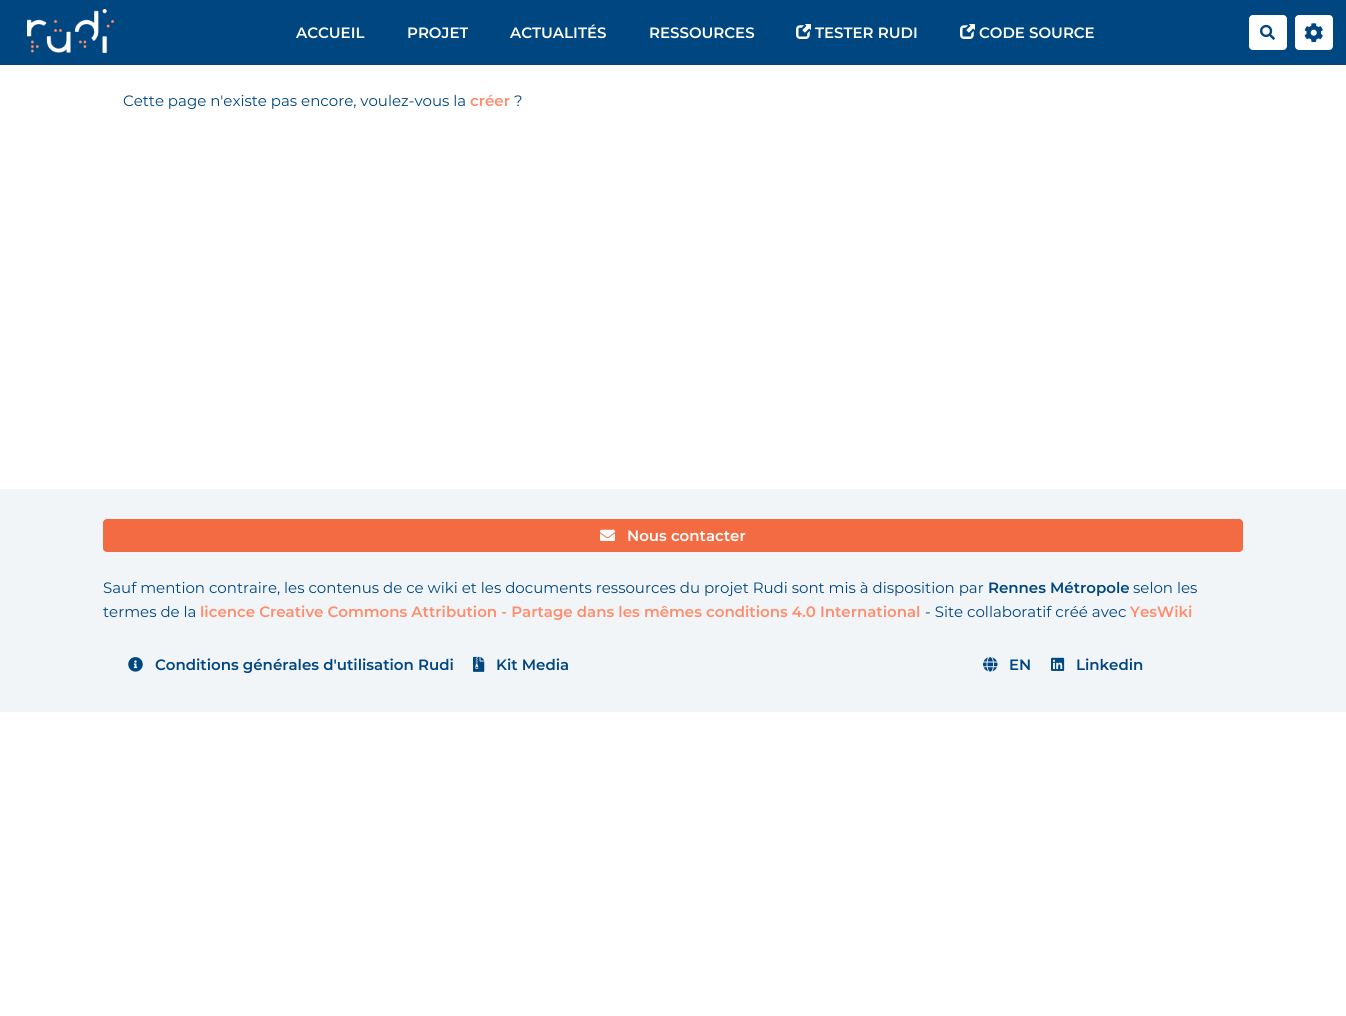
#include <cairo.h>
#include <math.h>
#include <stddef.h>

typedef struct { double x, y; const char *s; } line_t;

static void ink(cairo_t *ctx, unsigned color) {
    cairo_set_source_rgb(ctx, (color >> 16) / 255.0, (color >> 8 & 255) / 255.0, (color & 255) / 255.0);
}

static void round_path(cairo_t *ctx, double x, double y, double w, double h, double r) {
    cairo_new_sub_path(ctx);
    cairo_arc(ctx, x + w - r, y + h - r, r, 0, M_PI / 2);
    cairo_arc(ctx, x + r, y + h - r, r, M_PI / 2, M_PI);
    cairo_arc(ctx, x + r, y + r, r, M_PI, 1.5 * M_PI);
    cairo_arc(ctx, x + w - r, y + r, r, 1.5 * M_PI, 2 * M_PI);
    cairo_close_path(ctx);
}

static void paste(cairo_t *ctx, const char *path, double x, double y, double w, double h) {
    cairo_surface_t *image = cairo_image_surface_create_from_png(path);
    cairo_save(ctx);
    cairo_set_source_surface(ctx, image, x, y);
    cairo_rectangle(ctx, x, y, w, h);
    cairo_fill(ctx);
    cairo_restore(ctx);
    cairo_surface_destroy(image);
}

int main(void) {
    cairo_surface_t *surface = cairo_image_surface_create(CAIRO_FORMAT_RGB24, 1346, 1016);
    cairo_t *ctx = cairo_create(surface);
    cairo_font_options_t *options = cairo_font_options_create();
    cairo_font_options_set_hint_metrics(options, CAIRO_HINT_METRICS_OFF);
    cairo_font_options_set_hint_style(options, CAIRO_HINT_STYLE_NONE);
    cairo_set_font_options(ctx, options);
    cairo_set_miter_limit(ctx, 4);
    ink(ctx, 0xFFFFFF);
    cairo_paint(ctx);
    ink(ctx, 0x004680);
    cairo_rectangle(ctx, 0, 0, 1346, 65);
    cairo_fill(ctx);
    paste(ctx, "media/1.png", 27, 9, 87, 44);
    cairo_select_font_face(ctx, "Montserrat SemiBold", CAIRO_FONT_SLANT_NORMAL, CAIRO_FONT_WEIGHT_NORMAL);
    cairo_set_font_size(ctx, 15);
    ink(ctx, 0xFFFFFF);
    {
        static const line_t items[] = {
            {296, 38, "ACCUEIL"},
            {407, 38, "PROJET"},
            {510, 38, "ACTUALITÉS"},
            {649, 38, "RESSOURCES"},
        };
        for (size_t i = 0; i < sizeof items / sizeof *items; i++) {
            cairo_move_to(ctx, items[i].x, items[i].y);
            cairo_show_text(ctx, items[i].s);
        }
    }
    paste(ctx, "media/2.png", 796, 24, 15, 15);
    cairo_move_to(ctx, 815, 38);
    cairo_show_text(ctx, "TESTER RUDI");
    paste(ctx, "media/2.png", 960, 24, 15, 15);
    cairo_move_to(ctx, 979, 38);
    cairo_show_text(ctx, "CODE SOURCE");
    round_path(ctx, 1249, 15, 38, 35, 4);
    cairo_fill(ctx);
    paste(ctx, "media/3.png", 1260, 24, 15, 16);
    round_path(ctx, 1295, 15, 38, 35, 4);
    cairo_fill(ctx);
    paste(ctx, "media/4.png", 1304, 23, 19, 20);
    cairo_select_font_face(ctx, "Montserrat", CAIRO_FONT_SLANT_NORMAL, CAIRO_FONT_WEIGHT_NORMAL);
    ink(ctx, 0x004680);
    cairo_move_to(ctx, 123, 106);
    cairo_show_text(ctx, "Cette page n'existe pas encore, voulez-vous la");
    cairo_select_font_face(ctx, "Montserrat SemiBold", CAIRO_FONT_SLANT_NORMAL, CAIRO_FONT_WEIGHT_NORMAL);
    ink(ctx, 0xFF8D6D);
    cairo_move_to(ctx, 470, 106);
    cairo_show_text(ctx, "créer");
    cairo_select_font_face(ctx, "Montserrat", CAIRO_FONT_SLANT_NORMAL, CAIRO_FONT_WEIGHT_NORMAL);
    ink(ctx, 0x004680);
    cairo_move_to(ctx, 514, 106);
    cairo_show_text(ctx, "?");
    ink(ctx, 0xF2F5F8);
    cairo_rectangle(ctx, 0, 489, 1346, 223);
    cairo_fill(ctx);
    ink(ctx, 0xF36B43);
    round_path(ctx, 103, 519, 1140, 33, 4);
    cairo_fill(ctx);
    paste(ctx, "media/5.png", 600, 529, 15, 12);
    cairo_select_font_face(ctx, "Montserrat SemiBold", CAIRO_FONT_SLANT_NORMAL, CAIRO_FONT_WEIGHT_NORMAL);
    ink(ctx, 0xFFFFFF);
    cairo_move_to(ctx, 627, 541);
    cairo_show_text(ctx, "Nous contacter");
    cairo_select_font_face(ctx, "Montserrat", CAIRO_FONT_SLANT_NORMAL, CAIRO_FONT_WEIGHT_NORMAL);
    ink(ctx, 0x004680);
    cairo_move_to(ctx, 103, 593);
    cairo_show_text(ctx, "Sauf mention contraire, les contenus de ce wiki et les documents ressources du projet Rudi sont mis à disposition par");
    cairo_select_font_face(ctx, "Montserrat SemiBold", CAIRO_FONT_SLANT_NORMAL, CAIRO_FONT_WEIGHT_NORMAL);
    cairo_move_to(ctx, 988, 593);
    cairo_show_text(ctx, "Rennes Métropole");
    cairo_select_font_face(ctx, "Montserrat", CAIRO_FONT_SLANT_NORMAL, CAIRO_FONT_WEIGHT_NORMAL);
    cairo_move_to(ctx, 1133, 593);
    cairo_show_text(ctx, "selon les");
    cairo_move_to(ctx, 103, 617);
    cairo_show_text(ctx, "termes de la");
    cairo_select_font_face(ctx, "Montserrat SemiBold", CAIRO_FONT_SLANT_NORMAL, CAIRO_FONT_WEIGHT_NORMAL);
    ink(ctx, 0xFF8D6D);
    cairo_move_to(ctx, 200, 617);
    cairo_show_text(ctx, "licence Creative Commons Attribution - Partage dans les mêmes conditions 4.0 International");
    cairo_select_font_face(ctx, "Montserrat", CAIRO_FONT_SLANT_NORMAL, CAIRO_FONT_WEIGHT_NORMAL);
    ink(ctx, 0x004680);
    cairo_move_to(ctx, 925, 617);
    cairo_show_text(ctx, "- Site collaboratif créé avec");
    cairo_select_font_face(ctx, "Montserrat SemiBold", CAIRO_FONT_SLANT_NORMAL, CAIRO_FONT_WEIGHT_NORMAL);
    ink(ctx, 0xFF8D6D);
    cairo_move_to(ctx, 1130, 617);
    cairo_show_text(ctx, "YesWiki");
    paste(ctx, "media/6.png", 128, 657, 15, 15);
    ink(ctx, 0x004680);
    cairo_move_to(ctx, 155, 670);
    cairo_show_text(ctx, "Conditions générales d'utilisation Rudi");
    paste(ctx, "media/7.png", 473, 656, 12, 16);
    cairo_move_to(ctx, 496, 670);
    cairo_show_text(ctx, "Kit Media");
    paste(ctx, "media/8.png", 983, 657, 15, 15);
    cairo_move_to(ctx, 1009, 670);
    cairo_show_text(ctx, "EN");
    paste(ctx, "media/9.png", 1051, 657, 14, 14);
    cairo_move_to(ctx, 1076, 670);
    cairo_show_text(ctx, "Linkedin");
    cairo_surface_write_to_png(surface, "image.png");
    cairo_font_options_destroy(options);
    cairo_destroy(ctx);
    cairo_surface_destroy(surface);
    return 0;
}
